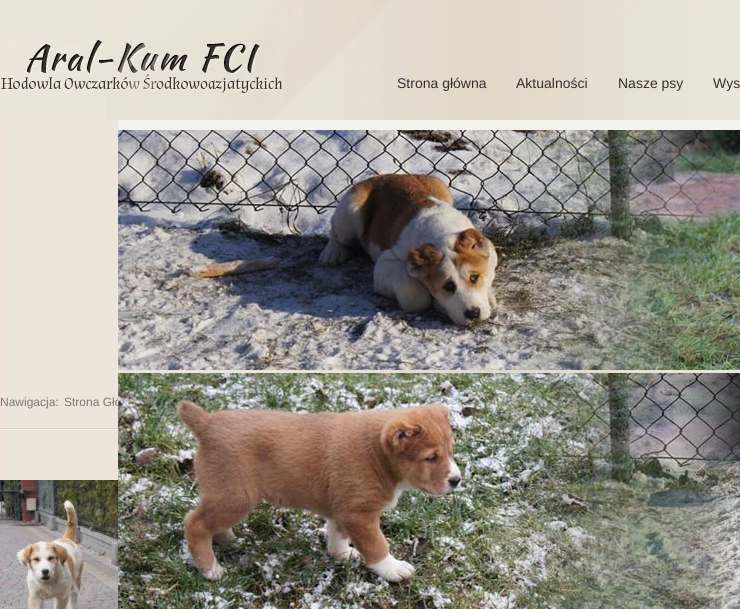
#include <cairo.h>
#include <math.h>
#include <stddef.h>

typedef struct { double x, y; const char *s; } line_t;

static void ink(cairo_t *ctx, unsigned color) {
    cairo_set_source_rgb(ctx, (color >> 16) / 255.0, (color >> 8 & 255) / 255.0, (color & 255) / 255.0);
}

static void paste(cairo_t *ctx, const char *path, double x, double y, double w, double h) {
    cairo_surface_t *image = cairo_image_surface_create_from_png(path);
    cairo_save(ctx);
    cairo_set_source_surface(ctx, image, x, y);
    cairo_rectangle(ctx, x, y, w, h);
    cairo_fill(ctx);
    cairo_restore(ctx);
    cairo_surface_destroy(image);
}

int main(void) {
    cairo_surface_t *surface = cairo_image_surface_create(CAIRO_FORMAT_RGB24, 740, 609);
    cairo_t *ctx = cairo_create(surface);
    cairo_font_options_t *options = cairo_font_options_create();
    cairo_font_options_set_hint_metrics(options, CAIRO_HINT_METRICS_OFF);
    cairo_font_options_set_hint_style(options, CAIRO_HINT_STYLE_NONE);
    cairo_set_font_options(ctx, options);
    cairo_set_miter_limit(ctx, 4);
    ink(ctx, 0xFFFFFF);
    cairo_paint(ctx);
    paste(ctx, "media/1.png", 0, 120, 740, 360);
    ink(ctx, 0xECE5DB);
    cairo_rectangle(ctx, 0, 0, 740, 120);
    cairo_fill(ctx);
    paste(ctx, "media/2.png", 106, 0, 589, 120);
    paste(ctx, "media/3.png", 1, 40, 282, 56);
    cairo_select_font_face(ctx, "Liberation Sans", CAIRO_FONT_SLANT_NORMAL, CAIRO_FONT_WEIGHT_NORMAL);
    cairo_set_font_size(ctx, 14);
    ink(ctx, 0x372F2D);
    {
        static const line_t items[] = {
            {397, 88, "Strona główna"},
            {516, 88, "Aktualności"},
            {618, 88, "Nasze psy"},
            {713, 88, "Wys"},
        };
        for (size_t i = 0; i < sizeof items / sizeof *items; i++) {
            cairo_move_to(ctx, items[i].x, items[i].y);
            cairo_show_text(ctx, items[i].s);
        }
    }
    paste(ctx, "media/4.png", 0, 428, 118, 2);
    cairo_set_font_size(ctx, 12);
    ink(ctx, 0x817572);
    cairo_move_to(ctx, 0, 406);
    cairo_show_text(ctx, "Nawigacja:");
    cairo_move_to(ctx, 64, 406);
    cairo_show_text(ctx, "Strona Głó");
    ink(ctx, 0xF5F1ED);
    cairo_rectangle(ctx, 118, 120, 622, 10);
    cairo_fill(ctx);
    paste(ctx, "media/5.png", 118, 130, 622, 240);
    paste(ctx, "media/6.png", 118, 373, 622, 236);
    paste(ctx, "media/7.png", 0, 480, 118, 129);
    cairo_surface_write_to_png(surface, "image.png");
    cairo_font_options_destroy(options);
    cairo_destroy(ctx);
    cairo_surface_destroy(surface);
    return 0;
}
